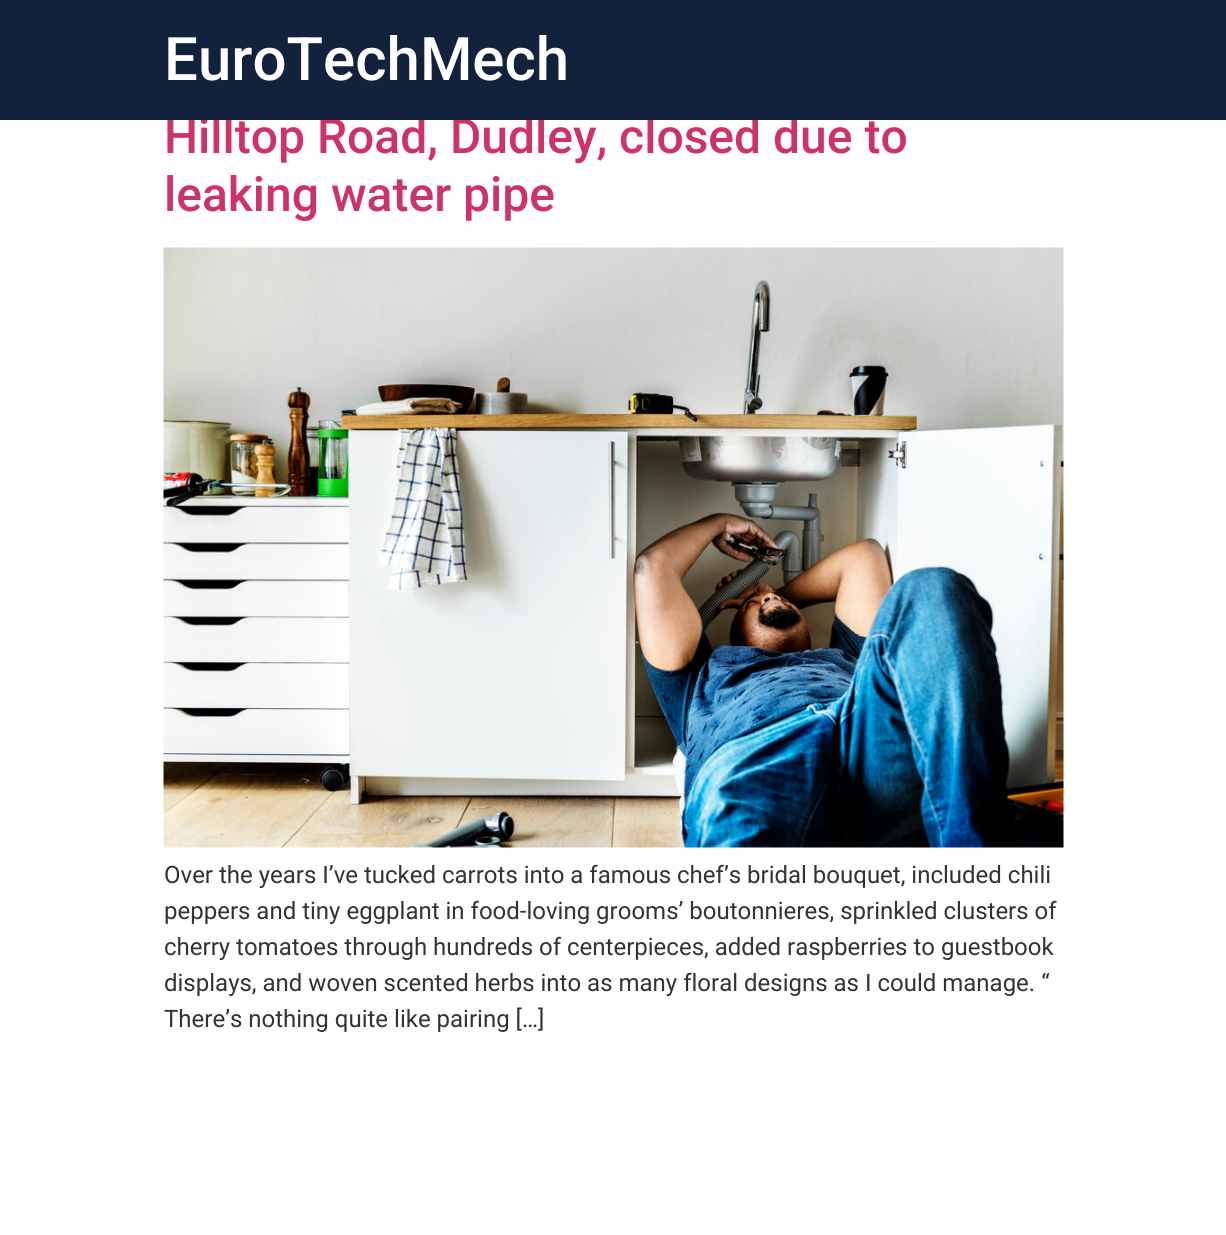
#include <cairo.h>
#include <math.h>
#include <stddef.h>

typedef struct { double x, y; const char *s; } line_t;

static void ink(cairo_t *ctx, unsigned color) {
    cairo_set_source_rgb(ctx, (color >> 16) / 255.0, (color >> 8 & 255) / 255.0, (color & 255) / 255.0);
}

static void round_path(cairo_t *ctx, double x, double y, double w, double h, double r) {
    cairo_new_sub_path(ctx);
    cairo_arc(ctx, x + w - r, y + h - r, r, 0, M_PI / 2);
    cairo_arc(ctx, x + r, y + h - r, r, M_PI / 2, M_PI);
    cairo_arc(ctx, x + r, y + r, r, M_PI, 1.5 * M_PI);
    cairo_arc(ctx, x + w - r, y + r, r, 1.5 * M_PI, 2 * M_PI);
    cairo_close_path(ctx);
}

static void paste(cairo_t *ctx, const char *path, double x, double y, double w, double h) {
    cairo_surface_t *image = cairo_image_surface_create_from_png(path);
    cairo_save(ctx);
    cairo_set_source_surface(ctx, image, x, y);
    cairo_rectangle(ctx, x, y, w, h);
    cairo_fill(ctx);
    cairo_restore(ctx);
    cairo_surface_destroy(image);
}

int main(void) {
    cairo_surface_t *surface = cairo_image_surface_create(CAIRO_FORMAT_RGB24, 1226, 1235);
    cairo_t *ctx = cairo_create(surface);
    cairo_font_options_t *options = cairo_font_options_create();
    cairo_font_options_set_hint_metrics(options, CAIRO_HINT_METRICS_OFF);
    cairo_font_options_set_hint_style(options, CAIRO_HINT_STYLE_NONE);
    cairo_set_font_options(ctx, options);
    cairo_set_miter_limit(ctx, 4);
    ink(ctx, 0xFFFFFF);
    cairo_paint(ctx);
    cairo_select_font_face(ctx, "Roboto Medium", CAIRO_FONT_SLANT_NORMAL, CAIRO_FONT_WEIGHT_NORMAL);
    cairo_set_font_size(ctx, 48);
    ink(ctx, 0xCC3366);
    cairo_move_to(ctx, 164, 153);
    cairo_show_text(ctx, "Hilltop Road, Dudley, closed due to");
    ink(ctx, 0x12223D);
    cairo_rectangle(ctx, 0, 0, 1226, 120);
    cairo_fill(ctx);
    cairo_set_font_size(ctx, 60);
    ink(ctx, 0xFFFFFF);
    cairo_move_to(ctx, 164, 80);
    cairo_show_text(ctx, "EuroTechMech");
    ink(ctx, 0x11203A);
    round_path(ctx, 1025, 53, 16, 16, 5);
    cairo_fill(ctx);
    cairo_set_font_size(ctx, 48);
    ink(ctx, 0xCC3366);
    cairo_move_to(ctx, 164, 211);
    cairo_show_text(ctx, "leaking water pipe");
    paste(ctx, "media/1.png", 163, 247, 901, 601);
    cairo_select_font_face(ctx, "Roboto", CAIRO_FONT_SLANT_NORMAL, CAIRO_FONT_WEIGHT_NORMAL);
    cairo_set_font_size(ctx, 24);
    ink(ctx, 0x333333);
    {
        static const line_t items[] = {
            {164, 883, "Over the years I’ve tucked carrots into a famous chef’s bridal bouquet, included chili"},
            {164, 919, "peppers and tiny eggplant in food-loving grooms’ boutonnieres, sprinkled clusters of"},
            {164, 955, "cherry tomatoes through hundreds of centerpieces, added raspberries to guestbook"},
            {164, 991, "displays, and woven scented herbs into as many floral designs as I could manage. “"},
            {164, 1027, "There’s nothing quite like pairing […]"},
        };
        for (size_t i = 0; i < sizeof items / sizeof *items; i++) {
            cairo_move_to(ctx, items[i].x, items[i].y);
            cairo_show_text(ctx, items[i].s);
        }
    }
    cairo_surface_write_to_png(surface, "image.png");
    cairo_font_options_destroy(options);
    cairo_destroy(ctx);
    cairo_surface_destroy(surface);
    return 0;
}
